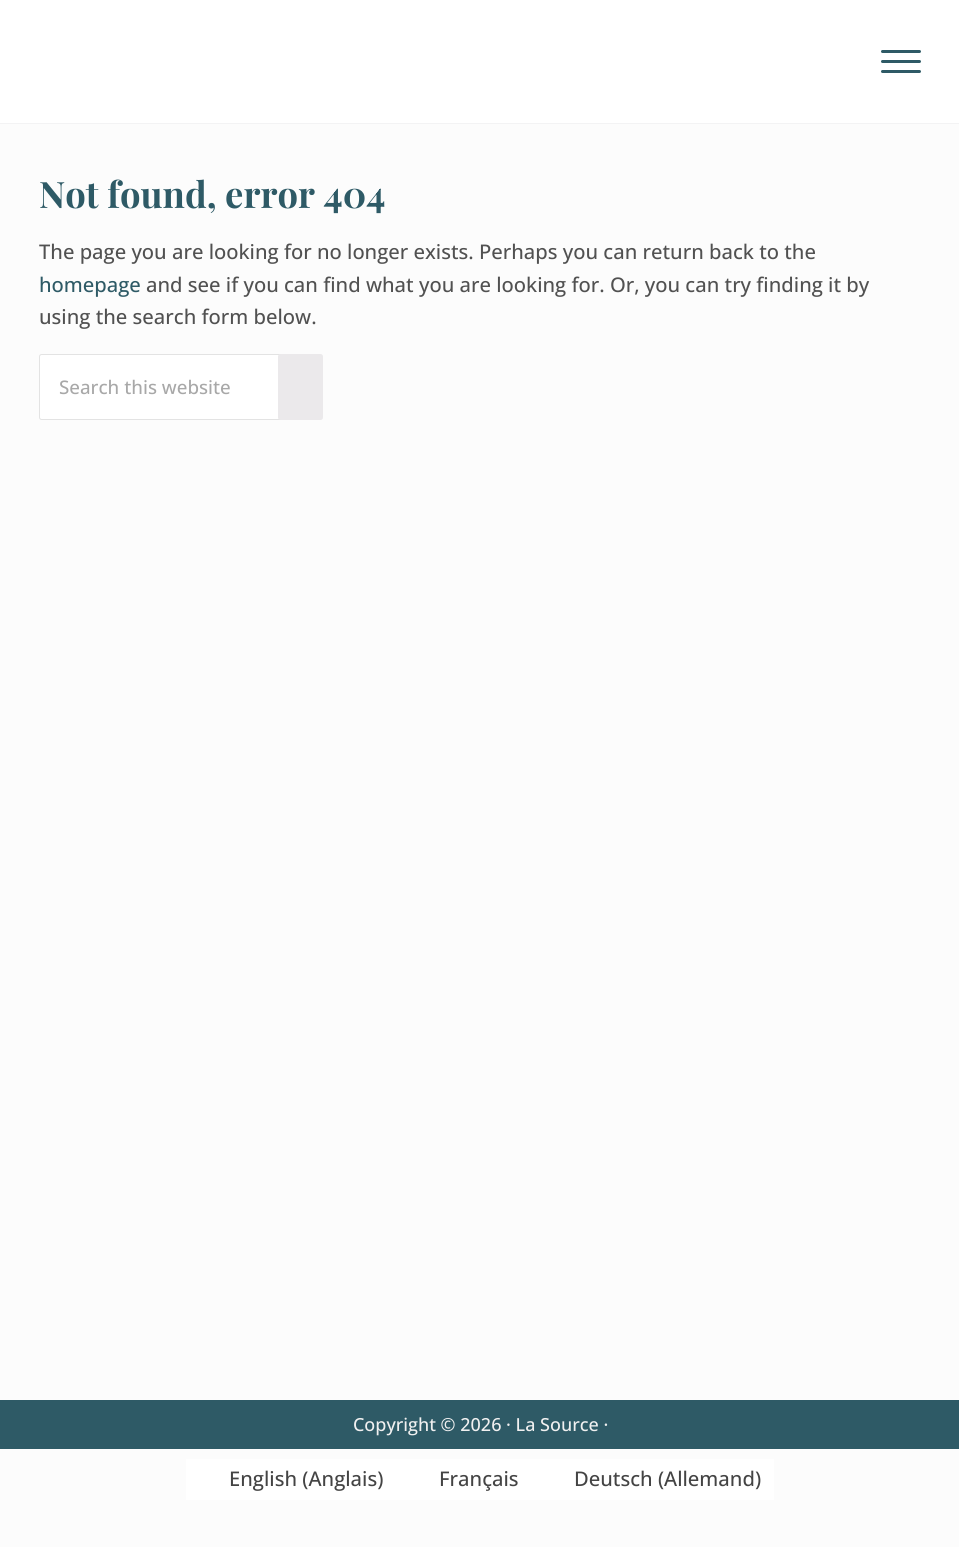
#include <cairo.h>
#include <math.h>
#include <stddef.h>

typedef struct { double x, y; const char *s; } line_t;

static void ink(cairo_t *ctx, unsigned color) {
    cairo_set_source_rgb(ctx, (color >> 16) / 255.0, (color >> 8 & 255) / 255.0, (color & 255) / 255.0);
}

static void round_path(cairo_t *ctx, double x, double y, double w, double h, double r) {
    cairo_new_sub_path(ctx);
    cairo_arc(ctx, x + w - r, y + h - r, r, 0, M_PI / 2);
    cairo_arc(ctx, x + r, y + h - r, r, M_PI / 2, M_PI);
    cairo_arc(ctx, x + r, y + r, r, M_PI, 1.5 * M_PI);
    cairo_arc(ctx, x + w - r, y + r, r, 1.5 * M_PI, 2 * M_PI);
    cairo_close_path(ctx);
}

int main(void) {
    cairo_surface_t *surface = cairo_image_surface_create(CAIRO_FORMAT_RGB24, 959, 1547);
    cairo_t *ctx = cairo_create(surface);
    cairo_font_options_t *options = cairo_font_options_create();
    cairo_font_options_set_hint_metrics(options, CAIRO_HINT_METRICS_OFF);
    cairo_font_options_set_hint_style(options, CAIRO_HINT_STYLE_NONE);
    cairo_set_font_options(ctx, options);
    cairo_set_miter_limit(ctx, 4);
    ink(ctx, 0xFCFCFC);
    cairo_paint(ctx);
    ink(ctx, 0xFFFFFF);
    cairo_rectangle(ctx, 0, 0, 959, 123);
    cairo_fill(ctx);
    ink(ctx, 0xF3F3F4);
    cairo_rectangle(ctx, 0, 123, 959, 1);
    cairo_fill(ctx);
    ink(ctx, 0x2E5A66);
    round_path(ctx, 881, 60, 40, 3, 1.5);
    cairo_fill(ctx);
    round_path(ctx, 881, 50, 40, 3, 1.5);
    cairo_fill(ctx);
    round_path(ctx, 881, 70, 40, 3, 1.5);
    cairo_fill(ctx);
    cairo_select_font_face(ctx, "Playfair Display", CAIRO_FONT_SLANT_NORMAL, CAIRO_FONT_WEIGHT_BOLD);
    cairo_set_font_size(ctx, 36.4);
    cairo_move_to(ctx, 39, 208);
    cairo_show_text(ctx, "Not found, error 404");
    cairo_select_font_face(ctx, "Open Sans Medium", CAIRO_FONT_SLANT_NORMAL, CAIRO_FONT_WEIGHT_NORMAL);
    cairo_set_font_size(ctx, 20.2);
    ink(ctx, 0x515151);
    cairo_move_to(ctx, 39, 259);
    cairo_show_text(ctx, "The page you are looking for no longer exists. Perhaps you can return back to the");
    ink(ctx, 0x2E5A66);
    cairo_move_to(ctx, 39, 292);
    cairo_show_text(ctx, "homepage");
    ink(ctx, 0x515151);
    cairo_move_to(ctx, 146, 292);
    cairo_show_text(ctx, "and see if you can find what you are looking for. Or, you can try finding it by");
    cairo_move_to(ctx, 39, 324);
    cairo_show_text(ctx, "using the search form below.");
    ink(ctx, 0xFFFFFF);
    cairo_new_path(ctx);
    cairo_move_to(ctx, 41, 355);
    cairo_line_to(ctx, 303, 355);
    cairo_line_to(ctx, 303, 419);
    cairo_line_to(ctx, 41, 419);
    cairo_curve_to(ctx, 40.5, 419, 40, 418.5, 40, 418);
    cairo_line_to(ctx, 40, 356);
    cairo_curve_to(ctx, 40, 355.5, 40.5, 355, 41, 355);
    cairo_close_path(ctx);
    cairo_fill(ctx);
    cairo_new_path(ctx);
    cairo_move_to(ctx, 41.5, 354.5);
    cairo_line_to(ctx, 303.5, 354.5);
    cairo_line_to(ctx, 303.5, 419.5);
    cairo_line_to(ctx, 41.5, 419.5);
    cairo_curve_to(ctx, 40.5, 419.5, 39.5, 418.5, 39.5, 417.5);
    cairo_line_to(ctx, 39.5, 356.5);
    cairo_curve_to(ctx, 39.5, 355.5, 40.5, 354.5, 41.5, 354.5);
    cairo_close_path(ctx);
    ink(ctx, 0xE3E3E3);
    cairo_set_line_width(ctx, 1);
    cairo_stroke(ctx);
    cairo_set_font_size(ctx, 18.75);
    ink(ctx, 0xA8A8A8);
    cairo_move_to(ctx, 59, 394);
    cairo_show_text(ctx, "Search this website");
    ink(ctx, 0xEBE9EB);
    round_path(ctx, 278, 354, 45, 66, 2.5);
    cairo_fill(ctx);
    ink(ctx, 0x2E5A66);
    cairo_rectangle(ctx, 0, 1400, 959, 49);
    cairo_fill(ctx);
    cairo_set_font_size(ctx, 18);
    ink(ctx, 0xF0F0F0);
    cairo_move_to(ctx, 353, 1431);
    cairo_show_text(ctx, "Copyright © 2026 · La Source ·");
    ink(ctx, 0xFFFFFF);
    cairo_rectangle(ctx, 186, 1459, 588, 41);
    cairo_fill(ctx);
    cairo_set_font_size(ctx, 20.2);
    ink(ctx, 0x444444);
    {
        static const line_t items[] = {
            {229, 1486, "English (Anglais)"},
            {439, 1486, "Français"},
            {574, 1486, "Deutsch (Allemand)"},
        };
        for (size_t i = 0; i < sizeof items / sizeof *items; i++) {
            cairo_move_to(ctx, items[i].x, items[i].y);
            cairo_show_text(ctx, items[i].s);
        }
    }
    cairo_surface_write_to_png(surface, "image.png");
    cairo_font_options_destroy(options);
    cairo_destroy(ctx);
    cairo_surface_destroy(surface);
    return 0;
}
